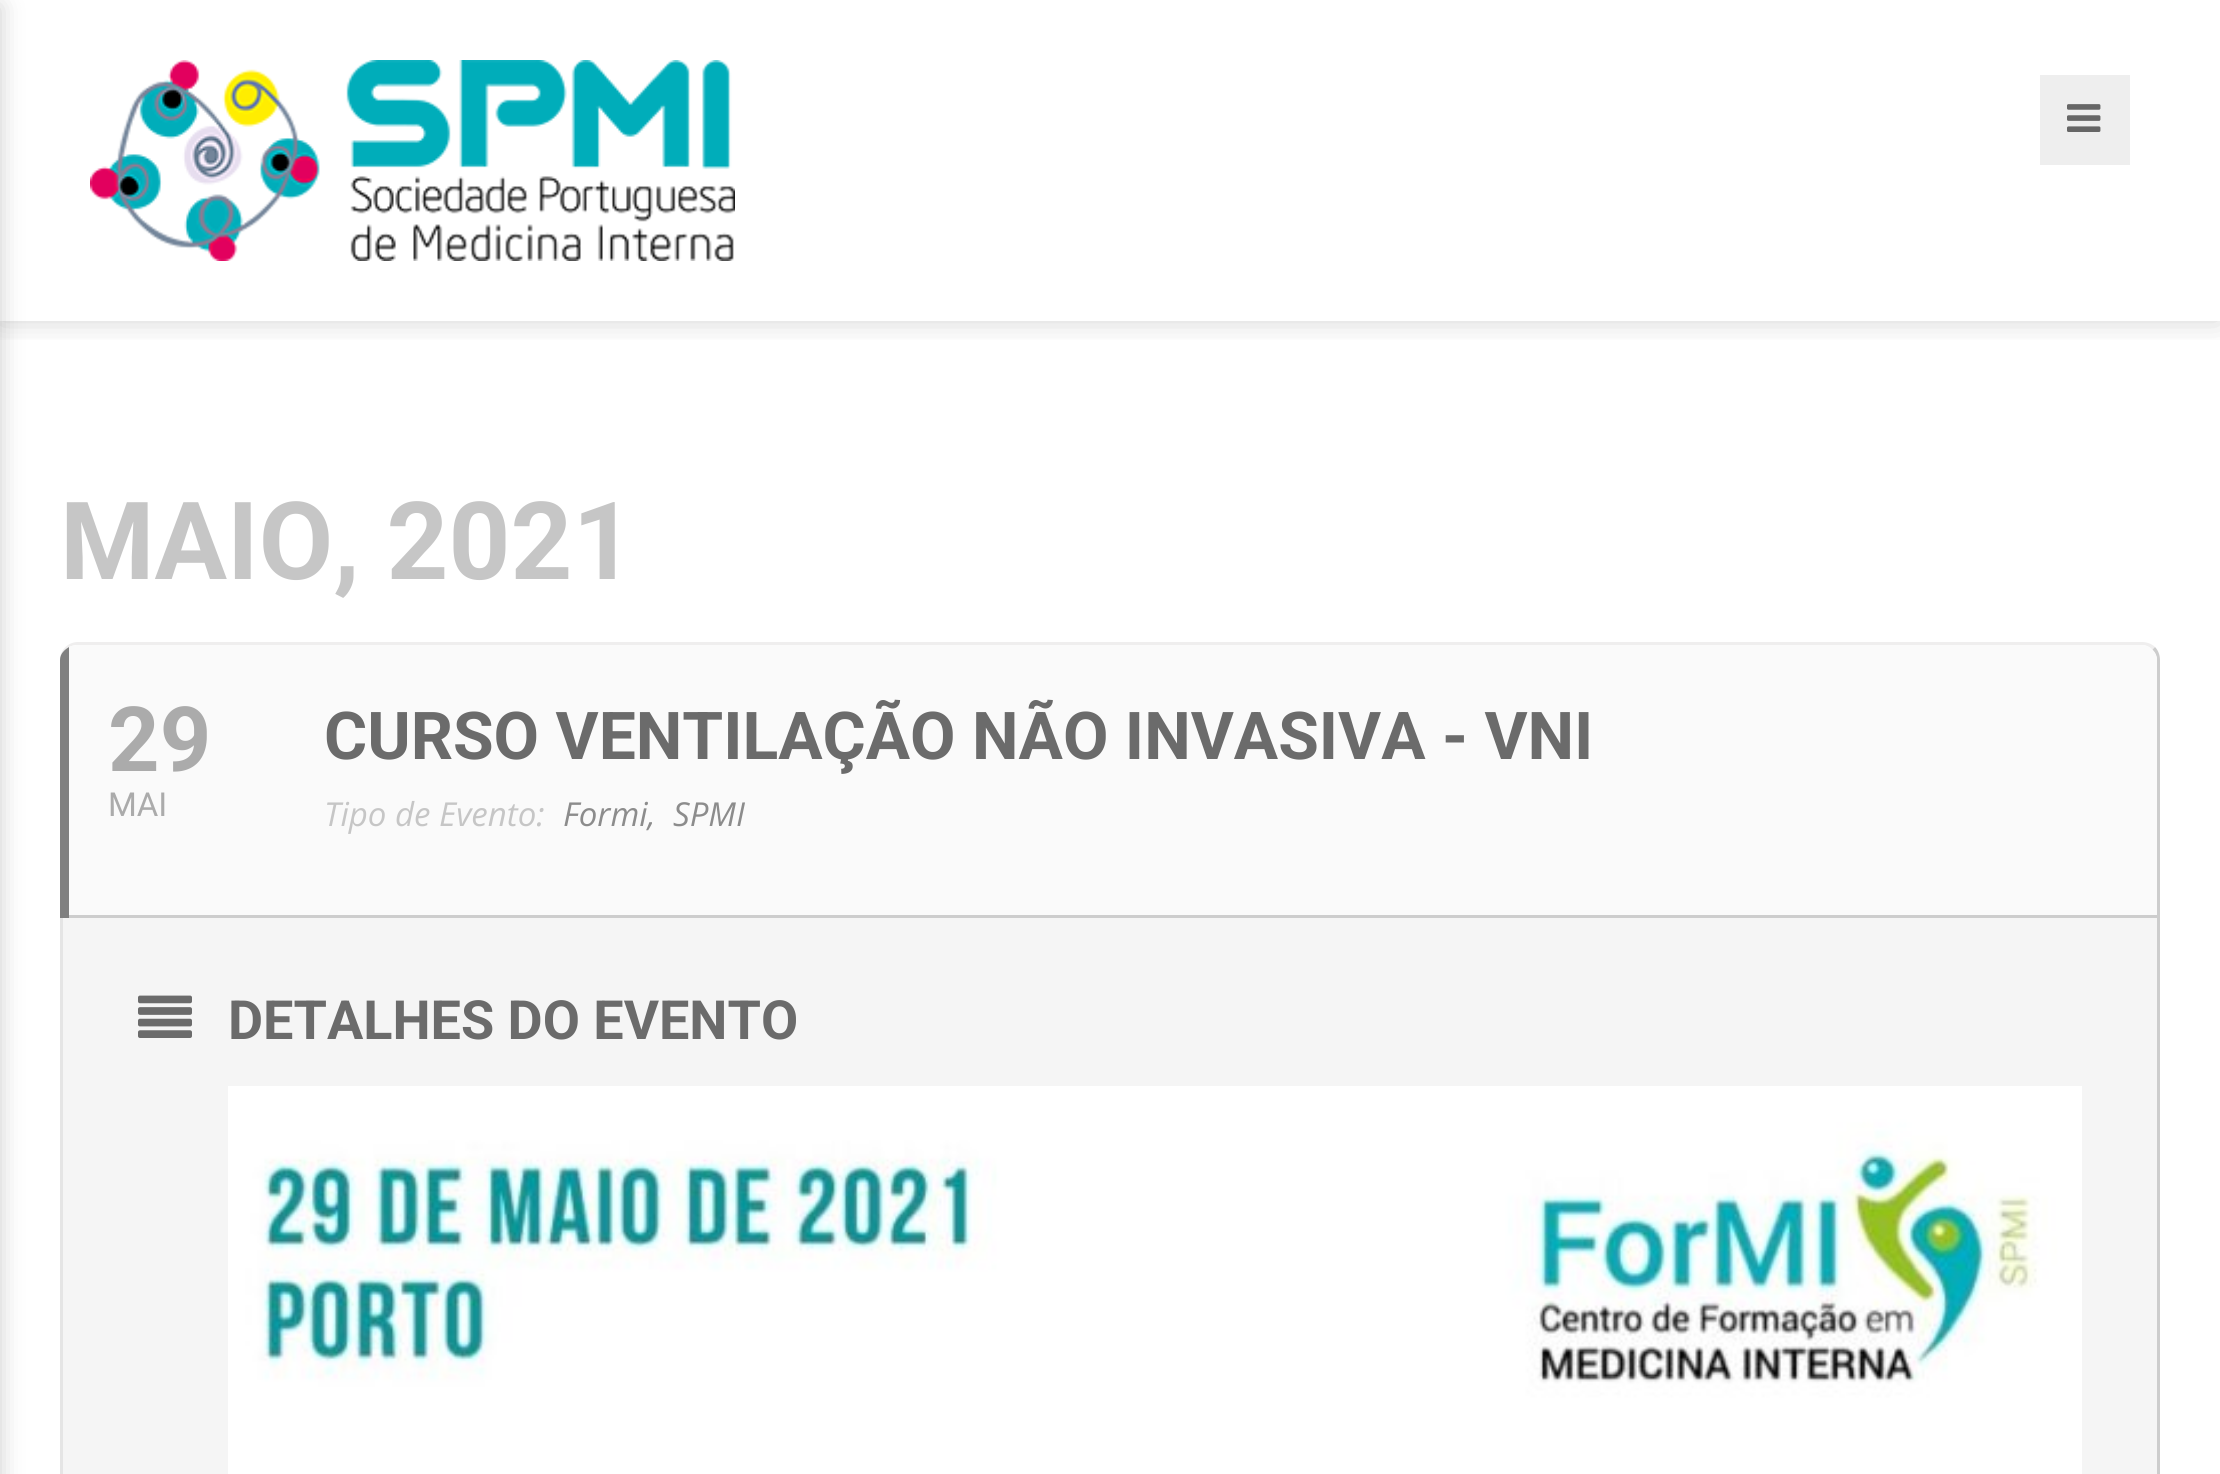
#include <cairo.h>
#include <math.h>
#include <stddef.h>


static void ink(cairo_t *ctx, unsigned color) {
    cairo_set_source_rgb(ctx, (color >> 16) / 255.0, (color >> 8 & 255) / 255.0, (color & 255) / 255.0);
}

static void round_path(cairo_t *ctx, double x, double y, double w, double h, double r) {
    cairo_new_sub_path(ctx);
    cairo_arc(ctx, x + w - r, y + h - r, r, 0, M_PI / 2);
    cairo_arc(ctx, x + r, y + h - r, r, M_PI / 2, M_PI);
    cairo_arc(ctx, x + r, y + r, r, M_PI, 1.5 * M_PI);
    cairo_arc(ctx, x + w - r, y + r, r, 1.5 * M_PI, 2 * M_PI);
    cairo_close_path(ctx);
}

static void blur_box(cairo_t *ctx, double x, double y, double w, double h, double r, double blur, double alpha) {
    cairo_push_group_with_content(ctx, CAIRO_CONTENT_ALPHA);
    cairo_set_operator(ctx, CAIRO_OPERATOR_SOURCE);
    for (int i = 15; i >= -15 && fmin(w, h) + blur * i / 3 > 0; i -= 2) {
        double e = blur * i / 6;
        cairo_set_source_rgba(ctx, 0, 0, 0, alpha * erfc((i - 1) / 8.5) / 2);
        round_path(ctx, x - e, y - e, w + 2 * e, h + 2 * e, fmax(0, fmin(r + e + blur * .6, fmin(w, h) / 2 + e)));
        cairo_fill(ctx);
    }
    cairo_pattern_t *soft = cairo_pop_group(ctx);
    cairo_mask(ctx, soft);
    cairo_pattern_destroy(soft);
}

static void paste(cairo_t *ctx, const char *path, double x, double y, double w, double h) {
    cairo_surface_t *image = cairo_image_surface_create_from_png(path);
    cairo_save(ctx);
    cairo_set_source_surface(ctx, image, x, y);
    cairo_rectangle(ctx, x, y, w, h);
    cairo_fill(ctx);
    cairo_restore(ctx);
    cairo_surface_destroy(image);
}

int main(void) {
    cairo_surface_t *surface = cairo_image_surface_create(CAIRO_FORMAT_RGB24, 2220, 1474);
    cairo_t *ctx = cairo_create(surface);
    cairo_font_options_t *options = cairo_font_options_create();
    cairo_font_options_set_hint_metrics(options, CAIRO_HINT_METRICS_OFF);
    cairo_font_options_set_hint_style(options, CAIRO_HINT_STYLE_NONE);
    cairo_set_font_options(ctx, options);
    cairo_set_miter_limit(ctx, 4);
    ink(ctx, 0xFFFFFF);
    cairo_paint(ctx);
    ink(ctx, 0x000000);
    blur_box(ctx, -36, 6, 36, 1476, 0, 12, 0.2);
    cairo_save(ctx);
    cairo_rectangle(ctx, 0, 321, 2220, 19);
    cairo_clip(ctx);
    ink(ctx, 0x222222);
    blur_box(ctx, 0, 0, 2220, 321, 0, 15, 0.2);
    cairo_restore(ctx);
    paste(ctx, "media/1.png", 90, 60, 645, 201);
    ink(ctx, 0xEEEEEE);
    cairo_rectangle(ctx, 2040, 75, 90, 90);
    cairo_fill(ctx);
    paste(ctx, "media/2.png", 2067, 104, 34, 28);
    cairo_select_font_face(ctx, "Roboto", CAIRO_FONT_SLANT_NORMAL, CAIRO_FONT_WEIGHT_BOLD);
    cairo_set_font_size(ctx, 108);
    ink(ctx, 0xC6C6C6);
    cairo_move_to(ctx, 60, 579);
    cairo_show_text(ctx, "MAIO, 2021");
    ink(ctx, 0xEFEEEE);
    cairo_new_path(ctx);
    cairo_move_to(ctx, 78, 642);
    cairo_line_to(ctx, 2142, 642);
    cairo_curve_to(ctx, 2147, 642, 2152, 644, 2155, 647);
    cairo_line_to(ctx, 2152, 650);
    cairo_curve_to(ctx, 2150, 647, 2146, 645, 2142, 645);
    cairo_line_to(ctx, 78, 645);
    cairo_curve_to(ctx, 68, 645, 60, 652, 60, 660);
    cairo_curve_to(ctx, 60, 650, 68, 642, 78, 642);
    cairo_close_path(ctx);
    cairo_fill(ctx);
    ink(ctx, 0xCDCDCD);
    cairo_new_path(ctx);
    cairo_move_to(ctx, 2155, 647);
    cairo_line_to(ctx, 2152, 650);
    cairo_curve_to(ctx, 2155, 652, 2157, 656, 2157, 660);
    cairo_line_to(ctx, 2157, 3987);
    cairo_curve_to(ctx, 2157, 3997, 2150, 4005, 2142, 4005);
    cairo_curve_to(ctx, 2152, 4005, 2160, 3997, 2160, 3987);
    cairo_line_to(ctx, 2160, 660);
    cairo_curve_to(ctx, 2160, 655, 2158, 650, 2155, 647);
    cairo_close_path(ctx);
    cairo_fill(ctx);
    ink(ctx, 0xFAFAFA);
    cairo_new_path(ctx);
    cairo_move_to(ctx, 78, 645);
    cairo_curve_to(ctx, 68, 645, 60, 652, 60, 660);
    cairo_line_to(ctx, 60, 918);
    cairo_line_to(ctx, 2157, 918);
    cairo_line_to(ctx, 2157, 660);
    cairo_curve_to(ctx, 2157, 652, 2150, 645, 2142, 645);
    cairo_close_path(ctx);
    cairo_fill(ctx);
    ink(ctx, 0x808080);
    cairo_new_path(ctx);
    cairo_move_to(ctx, 69, 647);
    cairo_curve_to(ctx, 64, 650, 60, 654, 60, 660);
    cairo_line_to(ctx, 60, 918);
    cairo_line_to(ctx, 69, 918);
    cairo_close_path(ctx);
    cairo_fill(ctx);
    cairo_set_font_size(ctx, 90);
    ink(ctx, 0xABABAB);
    cairo_move_to(ctx, 108, 771);
    cairo_show_text(ctx, "29");
    cairo_select_font_face(ctx, "Roboto", CAIRO_FONT_SLANT_NORMAL, CAIRO_FONT_WEIGHT_NORMAL);
    cairo_set_font_size(ctx, 33);
    cairo_move_to(ctx, 108, 816);
    cairo_show_text(ctx, "MAI");
    cairo_select_font_face(ctx, "Roboto", CAIRO_FONT_SLANT_NORMAL, CAIRO_FONT_WEIGHT_BOLD);
    cairo_set_font_size(ctx, 66);
    ink(ctx, 0x6B6B6B);
    cairo_move_to(ctx, 324, 759);
    cairo_show_text(ctx, "CURSO VENTILAÇÃO NÃO INVASIVA - VNI");
    cairo_select_font_face(ctx, "Open Sans", CAIRO_FONT_SLANT_ITALIC, CAIRO_FONT_WEIGHT_NORMAL);
    cairo_set_font_size(ctx, 33);
    ink(ctx, 0xC6C6C6);
    cairo_move_to(ctx, 324, 826);
    cairo_show_text(ctx, "Tipo de Evento:");
    ink(ctx, 0x8C8C8C);
    cairo_move_to(ctx, 563, 826);
    cairo_show_text(ctx, "Formi,");
    cairo_move_to(ctx, 673, 826);
    cairo_show_text(ctx, "SPMI");
    ink(ctx, 0xCDCDCD);
    cairo_rectangle(ctx, 69, 915, 2088, 3);
    cairo_fill(ctx);
    ink(ctx, 0xF5F5F5);
    cairo_new_path(ctx);
    cairo_move_to(ctx, 60, 918);
    cairo_line_to(ctx, 60, 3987);
    cairo_curve_to(ctx, 60, 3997, 68, 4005, 78, 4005);
    cairo_line_to(ctx, 2142, 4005);
    cairo_curve_to(ctx, 2150, 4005, 2157, 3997, 2157, 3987);
    cairo_line_to(ctx, 2157, 918);
    cairo_close_path(ctx);
    cairo_fill(ctx);
    ink(ctx, 0xE5E5E5);
    cairo_new_path(ctx);
    cairo_move_to(ctx, 60, 918);
    cairo_line_to(ctx, 60, 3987);
    cairo_curve_to(ctx, 60, 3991, 61, 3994, 63, 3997);
    cairo_line_to(ctx, 63, 918);
    cairo_close_path(ctx);
    cairo_fill(ctx);
    paste(ctx, "media/3.png", 138, 995, 54, 43);
    cairo_select_font_face(ctx, "Roboto", CAIRO_FONT_SLANT_NORMAL, CAIRO_FONT_WEIGHT_BOLD);
    cairo_set_font_size(ctx, 54);
    ink(ctx, 0x6B6B6B);
    cairo_move_to(ctx, 228, 1039);
    cairo_show_text(ctx, "DETALHES DO EVENTO");
    paste(ctx, "media/4.png", 228, 1086, 1854, 388);
    cairo_surface_write_to_png(surface, "image.png");
    cairo_font_options_destroy(options);
    cairo_destroy(ctx);
    cairo_surface_destroy(surface);
    return 0;
}
